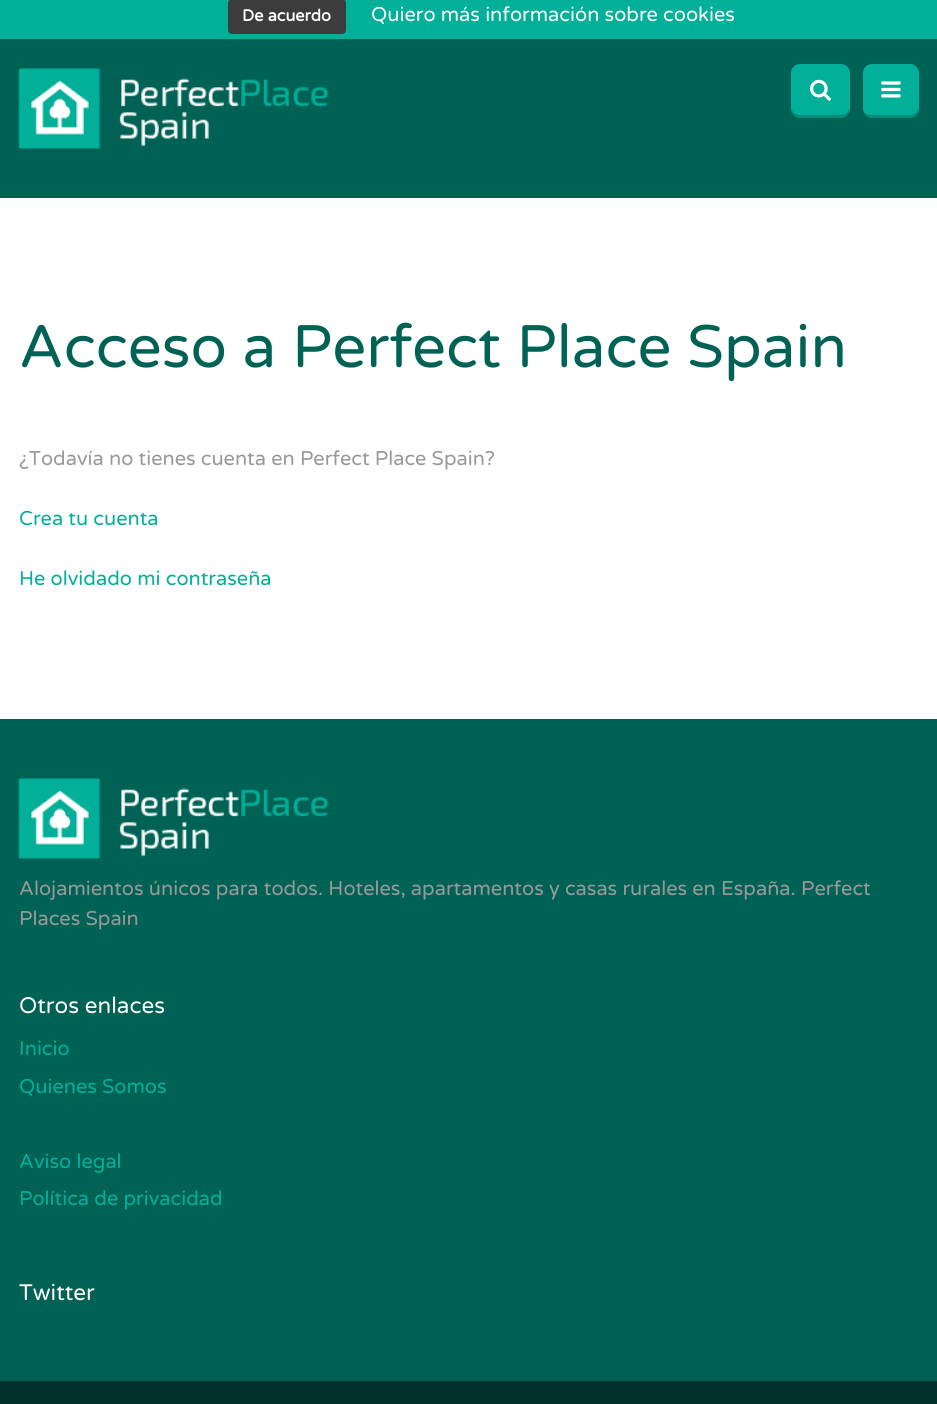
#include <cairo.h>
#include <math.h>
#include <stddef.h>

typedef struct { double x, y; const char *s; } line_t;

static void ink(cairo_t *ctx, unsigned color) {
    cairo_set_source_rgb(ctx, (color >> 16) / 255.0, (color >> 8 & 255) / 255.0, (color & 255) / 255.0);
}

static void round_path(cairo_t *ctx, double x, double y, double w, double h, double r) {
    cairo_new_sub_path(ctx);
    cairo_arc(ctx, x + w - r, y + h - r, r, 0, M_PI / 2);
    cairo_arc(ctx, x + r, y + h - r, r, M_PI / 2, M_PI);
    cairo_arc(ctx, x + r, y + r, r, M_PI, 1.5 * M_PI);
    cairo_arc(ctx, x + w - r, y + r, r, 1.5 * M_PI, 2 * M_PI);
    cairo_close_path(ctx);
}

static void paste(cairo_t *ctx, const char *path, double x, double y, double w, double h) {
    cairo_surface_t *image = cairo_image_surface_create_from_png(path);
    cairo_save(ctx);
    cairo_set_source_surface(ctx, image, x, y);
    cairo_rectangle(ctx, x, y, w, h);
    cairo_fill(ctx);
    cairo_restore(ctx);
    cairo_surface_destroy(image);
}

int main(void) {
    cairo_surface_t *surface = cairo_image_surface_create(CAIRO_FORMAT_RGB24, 937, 1404);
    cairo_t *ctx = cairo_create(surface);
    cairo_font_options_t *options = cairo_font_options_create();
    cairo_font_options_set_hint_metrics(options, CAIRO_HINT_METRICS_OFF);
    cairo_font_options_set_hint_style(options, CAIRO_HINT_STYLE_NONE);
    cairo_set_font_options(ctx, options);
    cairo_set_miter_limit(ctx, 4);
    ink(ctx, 0xFFFFFF);
    cairo_paint(ctx);
    ink(ctx, 0x02B099);
    cairo_rectangle(ctx, 0, 0, 937, 39);
    cairo_fill(ctx);
    ink(ctx, 0x3C3C3C);
    round_path(ctx, 228, -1, 118, 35, 4);
    cairo_fill(ctx);
    cairo_select_font_face(ctx, "Varela Round", CAIRO_FONT_SLANT_NORMAL, CAIRO_FONT_WEIGHT_BOLD);
    cairo_set_font_size(ctx, 16.25);
    ink(ctx, 0xFFFFFF);
    cairo_move_to(ctx, 242, 21);
    cairo_show_text(ctx, "De acuerdo");
    cairo_select_font_face(ctx, "Varela Round", CAIRO_FONT_SLANT_NORMAL, CAIRO_FONT_WEIGHT_NORMAL);
    cairo_set_font_size(ctx, 20);
    cairo_move_to(ctx, 371, 21);
    cairo_show_text(ctx, "Quiero más información sobre cookies");
    ink(ctx, 0x006255);
    cairo_rectangle(ctx, 0, 39, 937, 159);
    cairo_fill(ctx);
    paste(ctx, "media/1.png", 18, 68, 310, 81);
    ink(ctx, 0x02B099);
    round_path(ctx, 791, 64, 59, 54, 9);
    cairo_fill(ctx);
    cairo_set_source_rgba(ctx, 0, 0, 0, 0.2);
    cairo_new_path(ctx);
    cairo_move_to(ctx, 791, 106);
    cairo_curve_to(ctx, 791, 118, 796, 118, 807, 118);
    cairo_line_to(ctx, 834, 118);
    cairo_curve_to(ctx, 845, 118, 850, 118, 850, 106);
    cairo_curve_to(ctx, 850, 111, 846, 115, 841, 115);
    cairo_line_to(ctx, 800, 115);
    cairo_curve_to(ctx, 795, 115, 791, 111, 791, 106);
    cairo_close_path(ctx);
    cairo_fill(ctx);
    paste(ctx, "media/2.png", 810, 79, 21, 22);
    ink(ctx, 0x02B099);
    round_path(ctx, 863, 64, 56, 54, 9);
    cairo_fill(ctx);
    cairo_set_source_rgba(ctx, 0, 0, 0, 0.2);
    cairo_new_path(ctx);
    cairo_move_to(ctx, 863, 110);
    cairo_curve_to(ctx, 864, 115, 867, 118, 872, 118);
    cairo_line_to(ctx, 910, 118);
    cairo_curve_to(ctx, 915, 118, 919, 114, 919, 109);
    cairo_line_to(ctx, 919, 106);
    cairo_curve_to(ctx, 919, 111, 915, 115, 910, 115);
    cairo_line_to(ctx, 871, 115);
    cairo_curve_to(ctx, 868, 115, 865, 113, 863, 110);
    cairo_close_path(ctx);
    cairo_fill(ctx);
    paste(ctx, "media/3.png", 881, 81, 20, 17);
    cairo_set_font_size(ctx, 60);
    ink(ctx, 0x006255);
    cairo_move_to(ctx, 19, 367);
    cairo_show_text(ctx, "Acceso a Perfect Place Spain");
    cairo_set_font_size(ctx, 20);
    ink(ctx, 0x999999);
    cairo_move_to(ctx, 19, 465);
    cairo_show_text(ctx, "¿Todavía no tienes cuenta en Perfect Place Spain?");
    ink(ctx, 0x02B099);
    cairo_move_to(ctx, 19, 525);
    cairo_show_text(ctx, "Crea tu cuenta");
    cairo_move_to(ctx, 19, 585);
    cairo_show_text(ctx, "He olvidado mi contraseña");
    ink(ctx, 0x006255);
    cairo_rectangle(ctx, 0, 719, 937, 662);
    cairo_fill(ctx);
    paste(ctx, "media/1.png", 18, 778, 310, 81);
    ink(ctx, 0x999999);
    cairo_move_to(ctx, 19, 895);
    cairo_show_text(ctx, "Alojamientos únicos para todos. Hoteles, apartamentos y casas rurales en España. Perfect");
    cairo_move_to(ctx, 19, 925);
    cairo_show_text(ctx, "Places Spain");
    cairo_set_font_size(ctx, 22.5);
    ink(ctx, 0xFFFFFF);
    cairo_move_to(ctx, 19, 1013);
    cairo_show_text(ctx, "Otros enlaces");
    cairo_set_font_size(ctx, 20);
    ink(ctx, 0x02B099);
    {
        static const line_t items[] = {
            {19, 1055, "Inicio"},
            {19, 1093, "Quienes Somos"},
            {19, 1168, "Aviso legal"},
            {19, 1205, "Política de privacidad"},
        };
        for (size_t i = 0; i < sizeof items / sizeof *items; i++) {
            cairo_move_to(ctx, items[i].x, items[i].y);
            cairo_show_text(ctx, items[i].s);
        }
    }
    cairo_set_font_size(ctx, 22.5);
    ink(ctx, 0xFFFFFF);
    cairo_move_to(ctx, 19, 1300);
    cairo_show_text(ctx, "Twitter");
    ink(ctx, 0x00322B);
    cairo_rectangle(ctx, 0, 1381, 937, 23);
    cairo_fill(ctx);
    cairo_surface_write_to_png(surface, "image.png");
    cairo_font_options_destroy(options);
    cairo_destroy(ctx);
    cairo_surface_destroy(surface);
    return 0;
}
